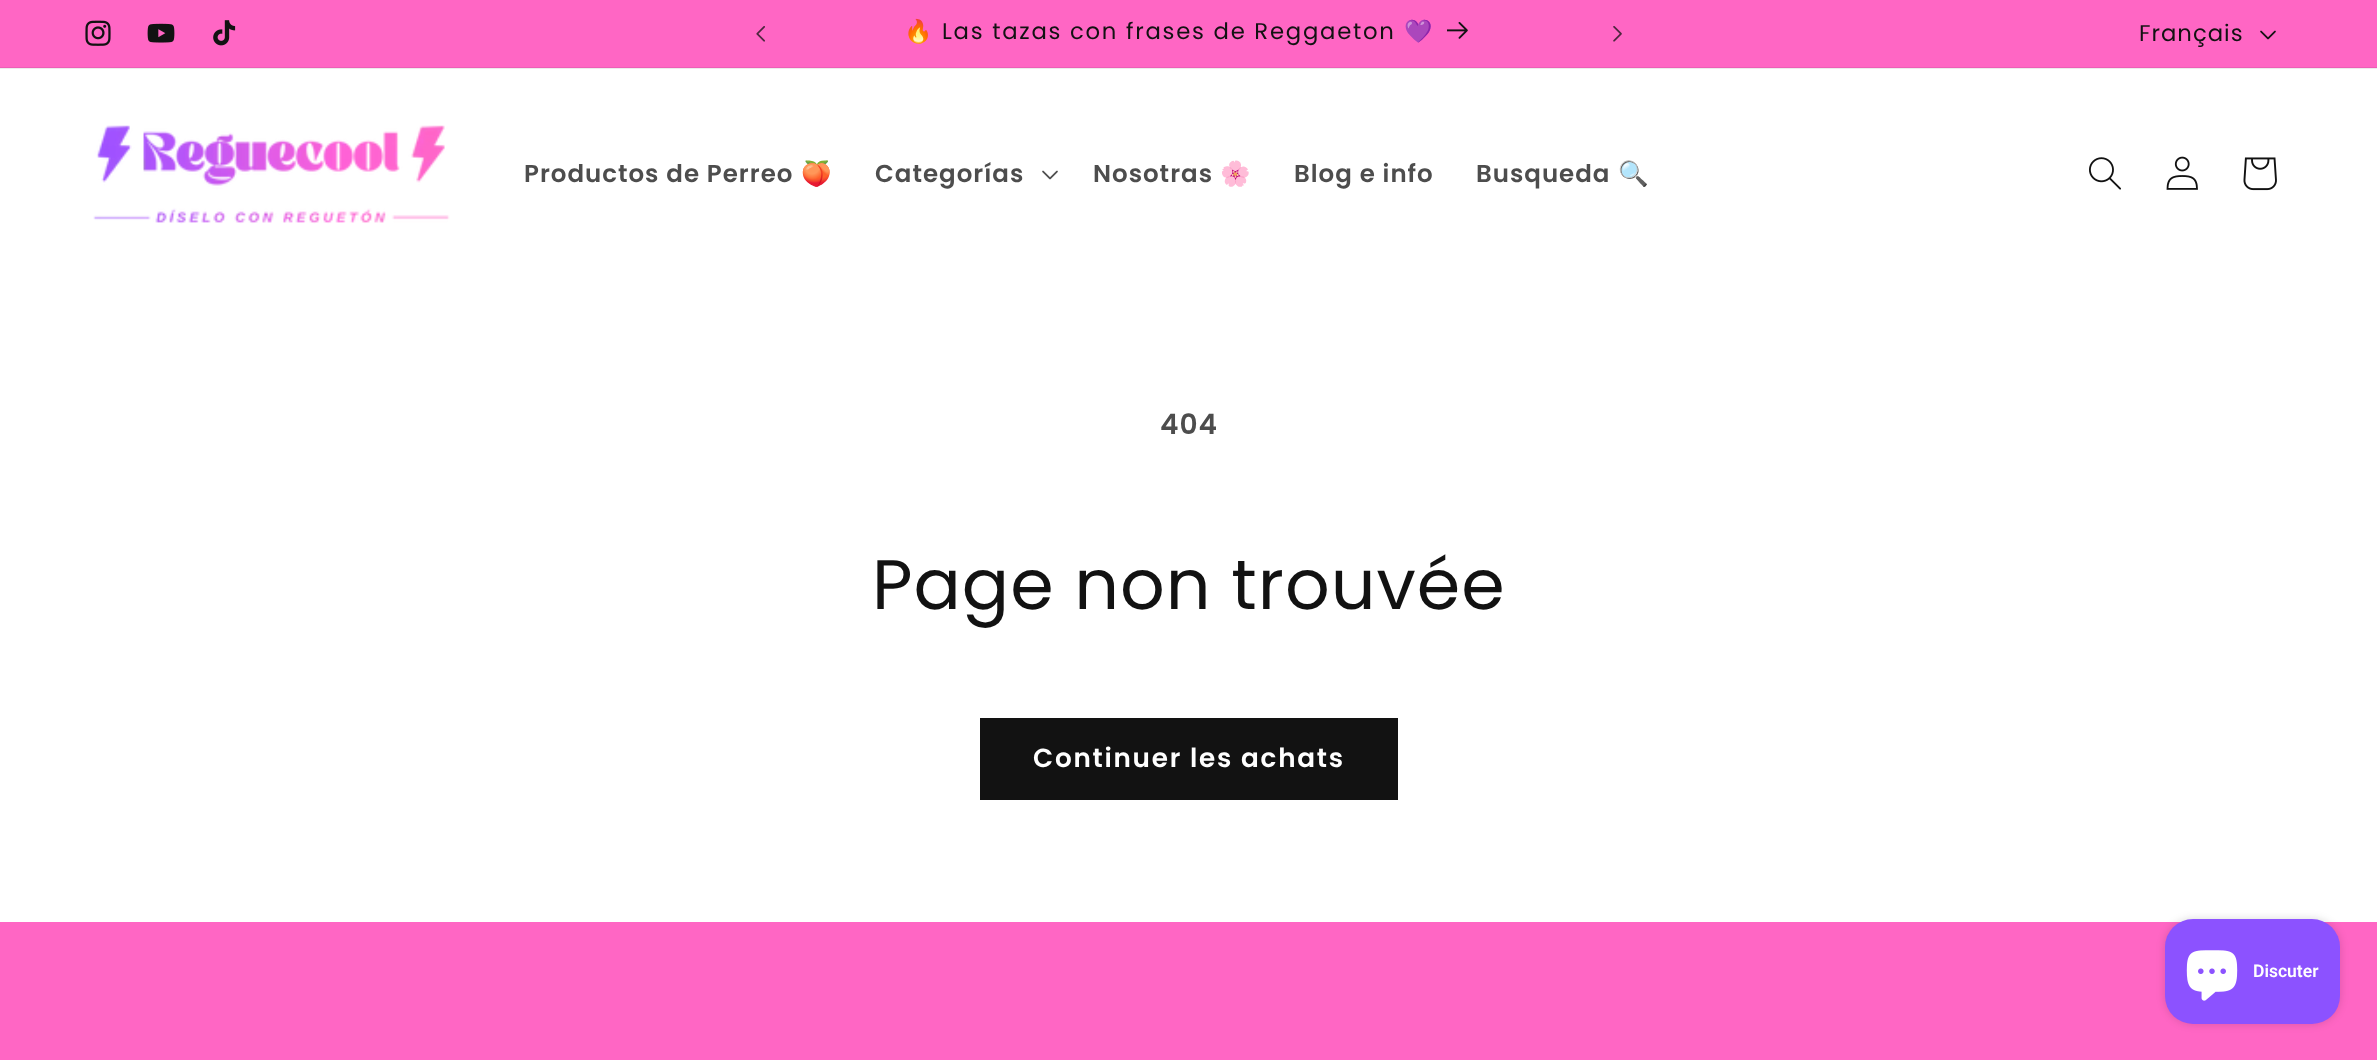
<svg xmlns="http://www.w3.org/2000/svg" width="2377" height="1060">
	<rect width="100%" height="100%" fill="#FFFFFF" />
	<rect x="0" y="68" width="2377" height="1" fill="#ECECEC" />
	<rect x="0" y="0" width="2377" height="67" fill="#FF66C4" />
	<rect x="0" y="67" width="2377" height="1" fill="#EC5FB6" />
	<image x="85" y="20" width="26" height="26" href="assets/img1.png" />
	<image x="147" y="23" width="28" height="20" href="assets/img2.png" />
	<image x="213" y="20" width="23" height="26" href="assets/img3.png" />
	<image x="756" y="26" width="9" height="16" href="assets/img4.png" />
	<text x="904" y="39" font-family="Noto Color Emoji" font-size="22.75" letter-spacing="1.75" fill="#121212">🔥</text>
	<text x="942" y="39" font-family="Poppins" font-size="22.75" letter-spacing="1.75" fill="#121212">Las tazas con frases de Reggaeton</text>
	<text x="1404" y="39" font-family="Noto Color Emoji" font-size="22.75" letter-spacing="1.75" fill="#121212">💜</text>
	<image x="1447" y="21" width="21" height="18" href="assets/img5.png" />
	<image x="1613" y="26" width="9" height="16" href="assets/img6.png" />
	<text x="2139" y="41" font-family="Poppins" font-size="22.75" letter-spacing="1" fill="#121212">Français</text>
	<image x="2260" y="30" width="16" height="10" href="assets/img7.png" />
	<image x="93" y="125" width="357" height="99" href="assets/img8.png" />
	<text x="524" y="182" font-family="Poppins" font-size="24.5" font-weight="600" letter-spacing="1" fill="#4D4D4D">Productos de Perreo</text>
	<text x="801" y="182" font-family="Noto Color Emoji" font-size="24.5" font-weight="700" letter-spacing="1" fill="#4D4D4D">🍑</text>
	<text x="875" y="182" font-family="Poppins" font-size="24.5" font-weight="600" letter-spacing="1" fill="#4D4D4D">Categorías</text>
	<image x="1042" y="170" width="16" height="10" href="assets/img9.png" />
	<text x="1093" y="182" font-family="Poppins" font-size="24.5" font-weight="600" letter-spacing="1" fill="#4D4D4D">Nosotras</text>
	<text x="1220" y="182" font-family="Noto Color Emoji" font-size="24.5" font-weight="700" letter-spacing="1" fill="#4D4D4D">🌸</text>
	<g font-family="Poppins" font-size="24.5" font-weight="600" letter-spacing="1" fill="#4D4D4D">
		<text x="1294" y="182">Blog e info</text>
		<text x="1476" y="182">Busqueda</text>
	</g>
	<text x="1618" y="182" font-family="Noto Color Emoji" font-size="24.5" font-weight="700" letter-spacing="1" fill="#4D4D4D">🔍</text>
	<image x="2089" y="157" width="32" height="33" href="assets/img10.png" />
	<image x="2166" y="156" width="32" height="34" href="assets/img11.png" />
	<image x="2243" y="157" width="34" height="34" href="assets/img12.png" />
	<text x="1160" y="434" font-family="Poppins" font-size="28" font-weight="600" letter-spacing="1" fill="#4D4D4D">404</text>
	<text x="872" y="609" font-family="Poppins" font-size="70" letter-spacing="1" fill="#121212">Page non trouvée</text>
	<rect x="980" y="718" width="418" height="82" fill="#121212" />
	<text x="1033" y="767" font-family="Poppins" font-size="26.25" font-weight="600" letter-spacing="1.75" fill="#FFFFFF">Continuer les achats</text>
	<rect x="0" y="922" width="2377" height="138" fill="#FF66C4" />
	<rect x="2165" y="919" width="175" height="105" rx="28" fill="#000000" fill-opacity="0.15" filter="blur(4.5px)" />
	<rect x="2165" y="919" width="175" height="105" rx="28" fill="#8C52FF" />
	<image x="2186" y="950" width="52" height="51" href="assets/img13.png" />
	<text x="2253" y="977" font-family="Roboto" font-size="17.5" font-weight="600" fill="#FFFFFF">Discuter</text>
</svg>
